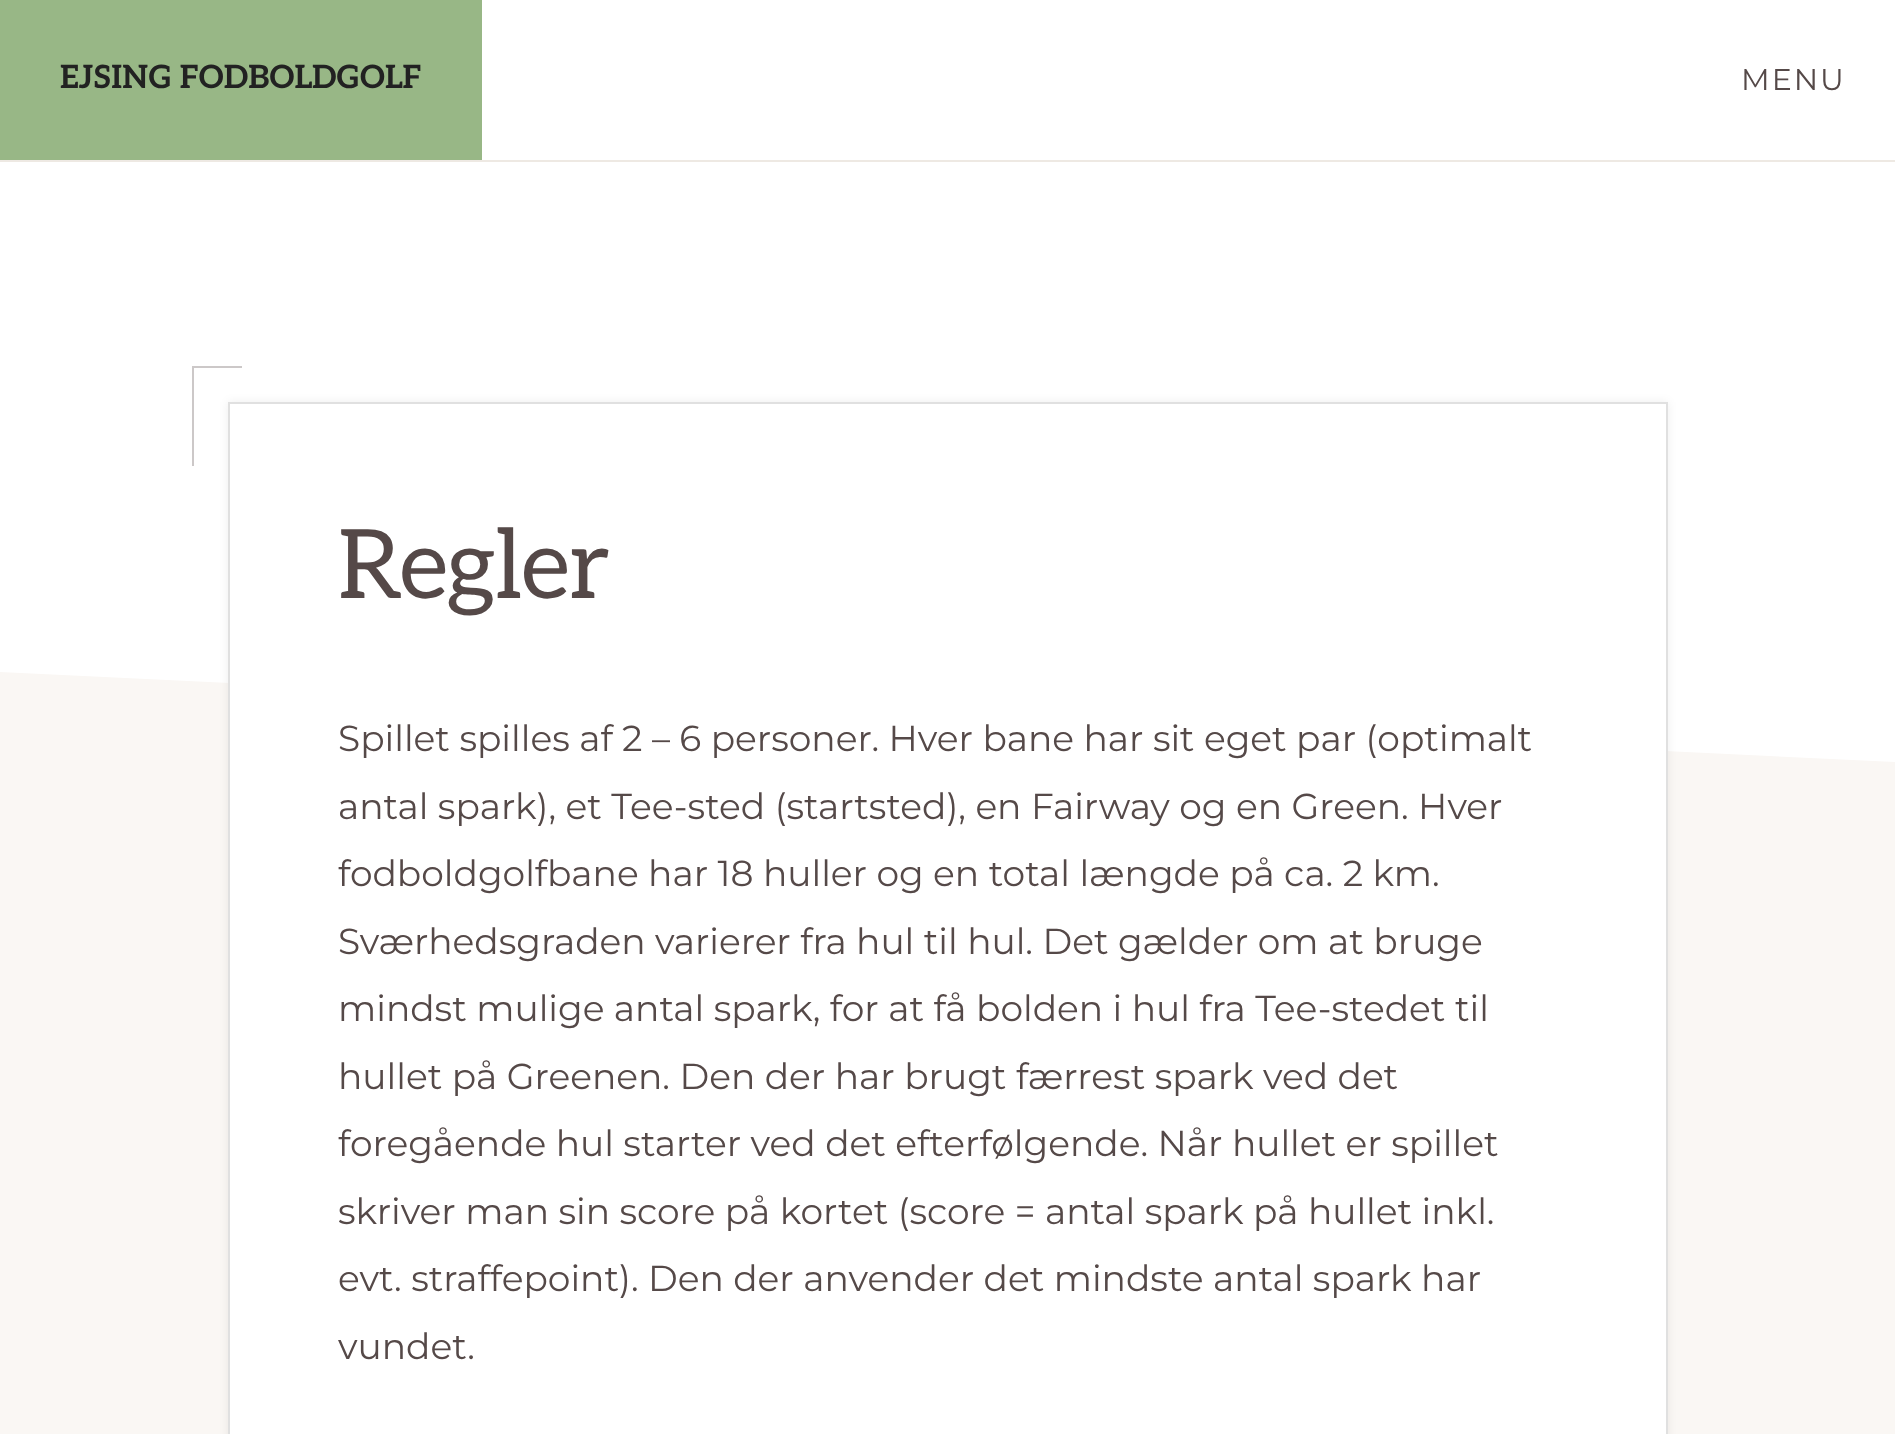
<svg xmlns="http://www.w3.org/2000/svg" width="1895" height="1434">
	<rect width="100%" height="100%" fill="#FAF7F4" />
	<rect x="482" y="0" width="1413" height="160" fill="#FFFFFF" />
	<rect x="0" y="160" width="1895" height="2" fill="#EEE9E3" />
	<rect x="0" y="0" width="482" height="160" fill="#98B786" />
	<text x="60" y="88" font-family="Aleo" font-size="32" font-weight="700" fill="#222222">EJSING FODBOLDGOLF</text>
	<text x="1741" y="90" font-family="Montserrat" font-size="30" letter-spacing="2" fill="#554948">MENU</text>
	<path d="M0 162V672L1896 762V162Z" fill="#FFFFFF" />
	<rect x="228" y="402" width="1440" height="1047" fill="#000000" fill-opacity="0.07" filter="blur(5px)" />
	<rect x="229" y="403" width="1438" height="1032" fill="#FFFFFF" stroke="#E0E0E0" stroke-width="2" />
	<rect x="192" y="366" width="50" height="2" fill="#CCC8C8" />
	<rect x="192" y="366" width="2" height="100" fill="#CCC8C8" />
	<text x="338" y="598" font-family="Aleo" font-size="96" letter-spacing="-1" fill="#554948">Regler</text>
	<g font-family="Montserrat" font-size="36" fill="#554948">
		<text x="338" y="751">Spillet spilles af 2 – 6 personer. Hver bane har sit eget par (optimalt</text>
		<text x="338" y="819">antal spark), et Tee-sted (startsted), en Fairway og en Green. Hver</text>
		<text x="338" y="886">fodboldgolfbane har 18 huller og en total længde på ca. 2 km.</text>
		<text x="338" y="954">Sværhedsgraden varierer fra hul til hul. Det gælder om at bruge</text>
		<text x="338" y="1021">mindst mulige antal spark, for at få bolden i hul fra Tee-stedet til</text>
		<text x="338" y="1089">hullet på Greenen. Den der har brugt færrest spark ved det</text>
		<text x="338" y="1156">foregående hul starter ved det efterfølgende. Når hullet er spillet</text>
		<text x="338" y="1224">skriver man sin score på kortet (score = antal spark på hullet inkl.</text>
		<text x="338" y="1291">evt. straffepoint). Den der anvender det mindste antal spark har</text>
		<text x="338" y="1359">vundet.</text>
	</g>
</svg>
